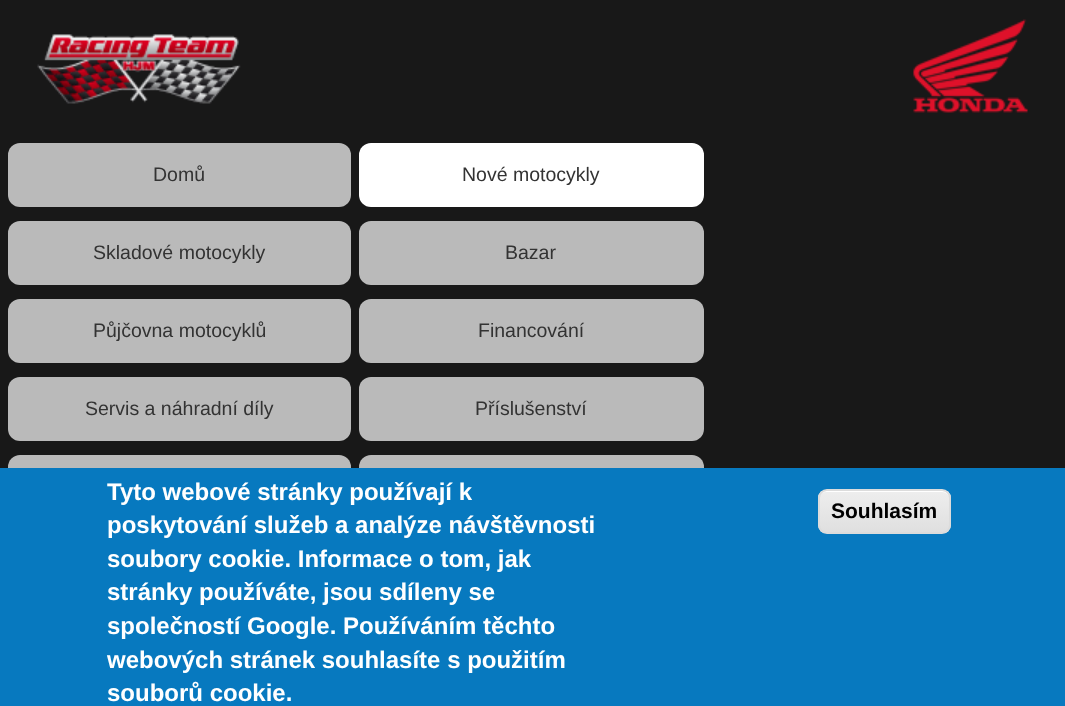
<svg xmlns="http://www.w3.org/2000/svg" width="1065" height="706">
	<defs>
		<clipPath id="clip1"><rect x="818" y="489" width="133" height="45" rx="9" /></clipPath>
		<linearGradient id="g1" gradientUnits="userSpaceOnUse" x1="884" y1="491" x2="884" y2="533"><stop offset="0.05" stop-color="#EDEDED" /><stop offset="1" stop-color="#DFDFDF" /></linearGradient>
	</defs>
	<rect width="100%" height="100%" fill="#181818" />
	<image x="37" y="34" width="204" height="70" href="assets/img1.png" />
	<image x="913" y="19" width="115" height="94" href="assets/img2.png" />
	<rect x="8" y="143" width="343" height="64" rx="12" fill="#BABABA" />
	<text x="153" y="181" font-family="Liberation Sans" font-size="19.5" fill="#333333">Domů</text>
	<rect x="359" y="143" width="345" height="64" rx="12" fill="#FFFFFF" />
	<text x="462" y="181" font-family="Liberation Sans" font-size="19.5" fill="#333333">Nové motocykly</text>
	<rect x="8" y="221" width="343" height="64" rx="12" fill="#BABABA" />
	<text x="93" y="259" font-family="Liberation Sans" font-size="19.5" fill="#333333">Skladové motocykly</text>
	<rect x="359" y="221" width="345" height="64" rx="12" fill="#BABABA" />
	<text x="505" y="259" font-family="Liberation Sans" font-size="19.5" fill="#333333">Bazar</text>
	<rect x="8" y="299" width="343" height="64" rx="12" fill="#BABABA" />
	<text x="93" y="337" font-family="Liberation Sans" font-size="19.5" fill="#333333">Půjčovna motocyklů</text>
	<rect x="359" y="299" width="345" height="64" rx="12" fill="#BABABA" />
	<text x="478" y="337" font-family="Liberation Sans" font-size="19.5" fill="#333333">Financování</text>
	<rect x="8" y="377" width="343" height="64" rx="12" fill="#BABABA" />
	<text x="85" y="415" font-family="Liberation Sans" font-size="19.5" fill="#333333">Servis a náhradní díly</text>
	<rect x="359" y="377" width="345" height="64" rx="12" fill="#BABABA" />
	<text x="475" y="415" font-family="Liberation Sans" font-size="19.5" fill="#333333">Příslušenství</text>
	<rect x="8" y="455" width="343" height="64" rx="12" fill="#BABABA" />
	<rect x="359" y="455" width="345" height="64" rx="12" fill="#BABABA" />
	<rect x="0" y="468" width="1065" height="238" fill="#0779BF" />
	<g font-family="Liberation Sans" font-size="24" font-weight="700" fill="#FFFFFF">
		<text x="107" y="500">Tyto webové stránky používají k</text>
		<text x="107" y="533">poskytování služeb a analýze návštěvnosti</text>
		<text x="107" y="567">soubory cookie. Informace o tom, jak</text>
		<text x="107" y="600">stránky používáte, jsou sdíleny se</text>
		<text x="107" y="634">společností Google. Používáním těchto</text>
		<text x="107" y="668">webových stránek souhlasíte s použitím</text>
		<text x="107" y="701">souborů cookie.</text>
	</g>
	<g clip-path="url(#clip1)">
		<rect x="818" y="491" width="133" height="42" fill="url(#g1)" />
	</g>
	<path d="M826 492H942C946 492 950 495 950 500C950 486 931 491 923 491H846C838 491 819 486 819 500C819 495 822 492 826 492Z" fill="#FFFFFF" />
	<rect x="819" y="490" width="131" height="43" rx="8" fill="none" stroke="#DCDCDC" stroke-width="2" />
	<text x="831" y="518" font-family="Liberation Sans" font-size="21" font-weight="700" fill="#000000">Souhlasím</text>
</svg>
